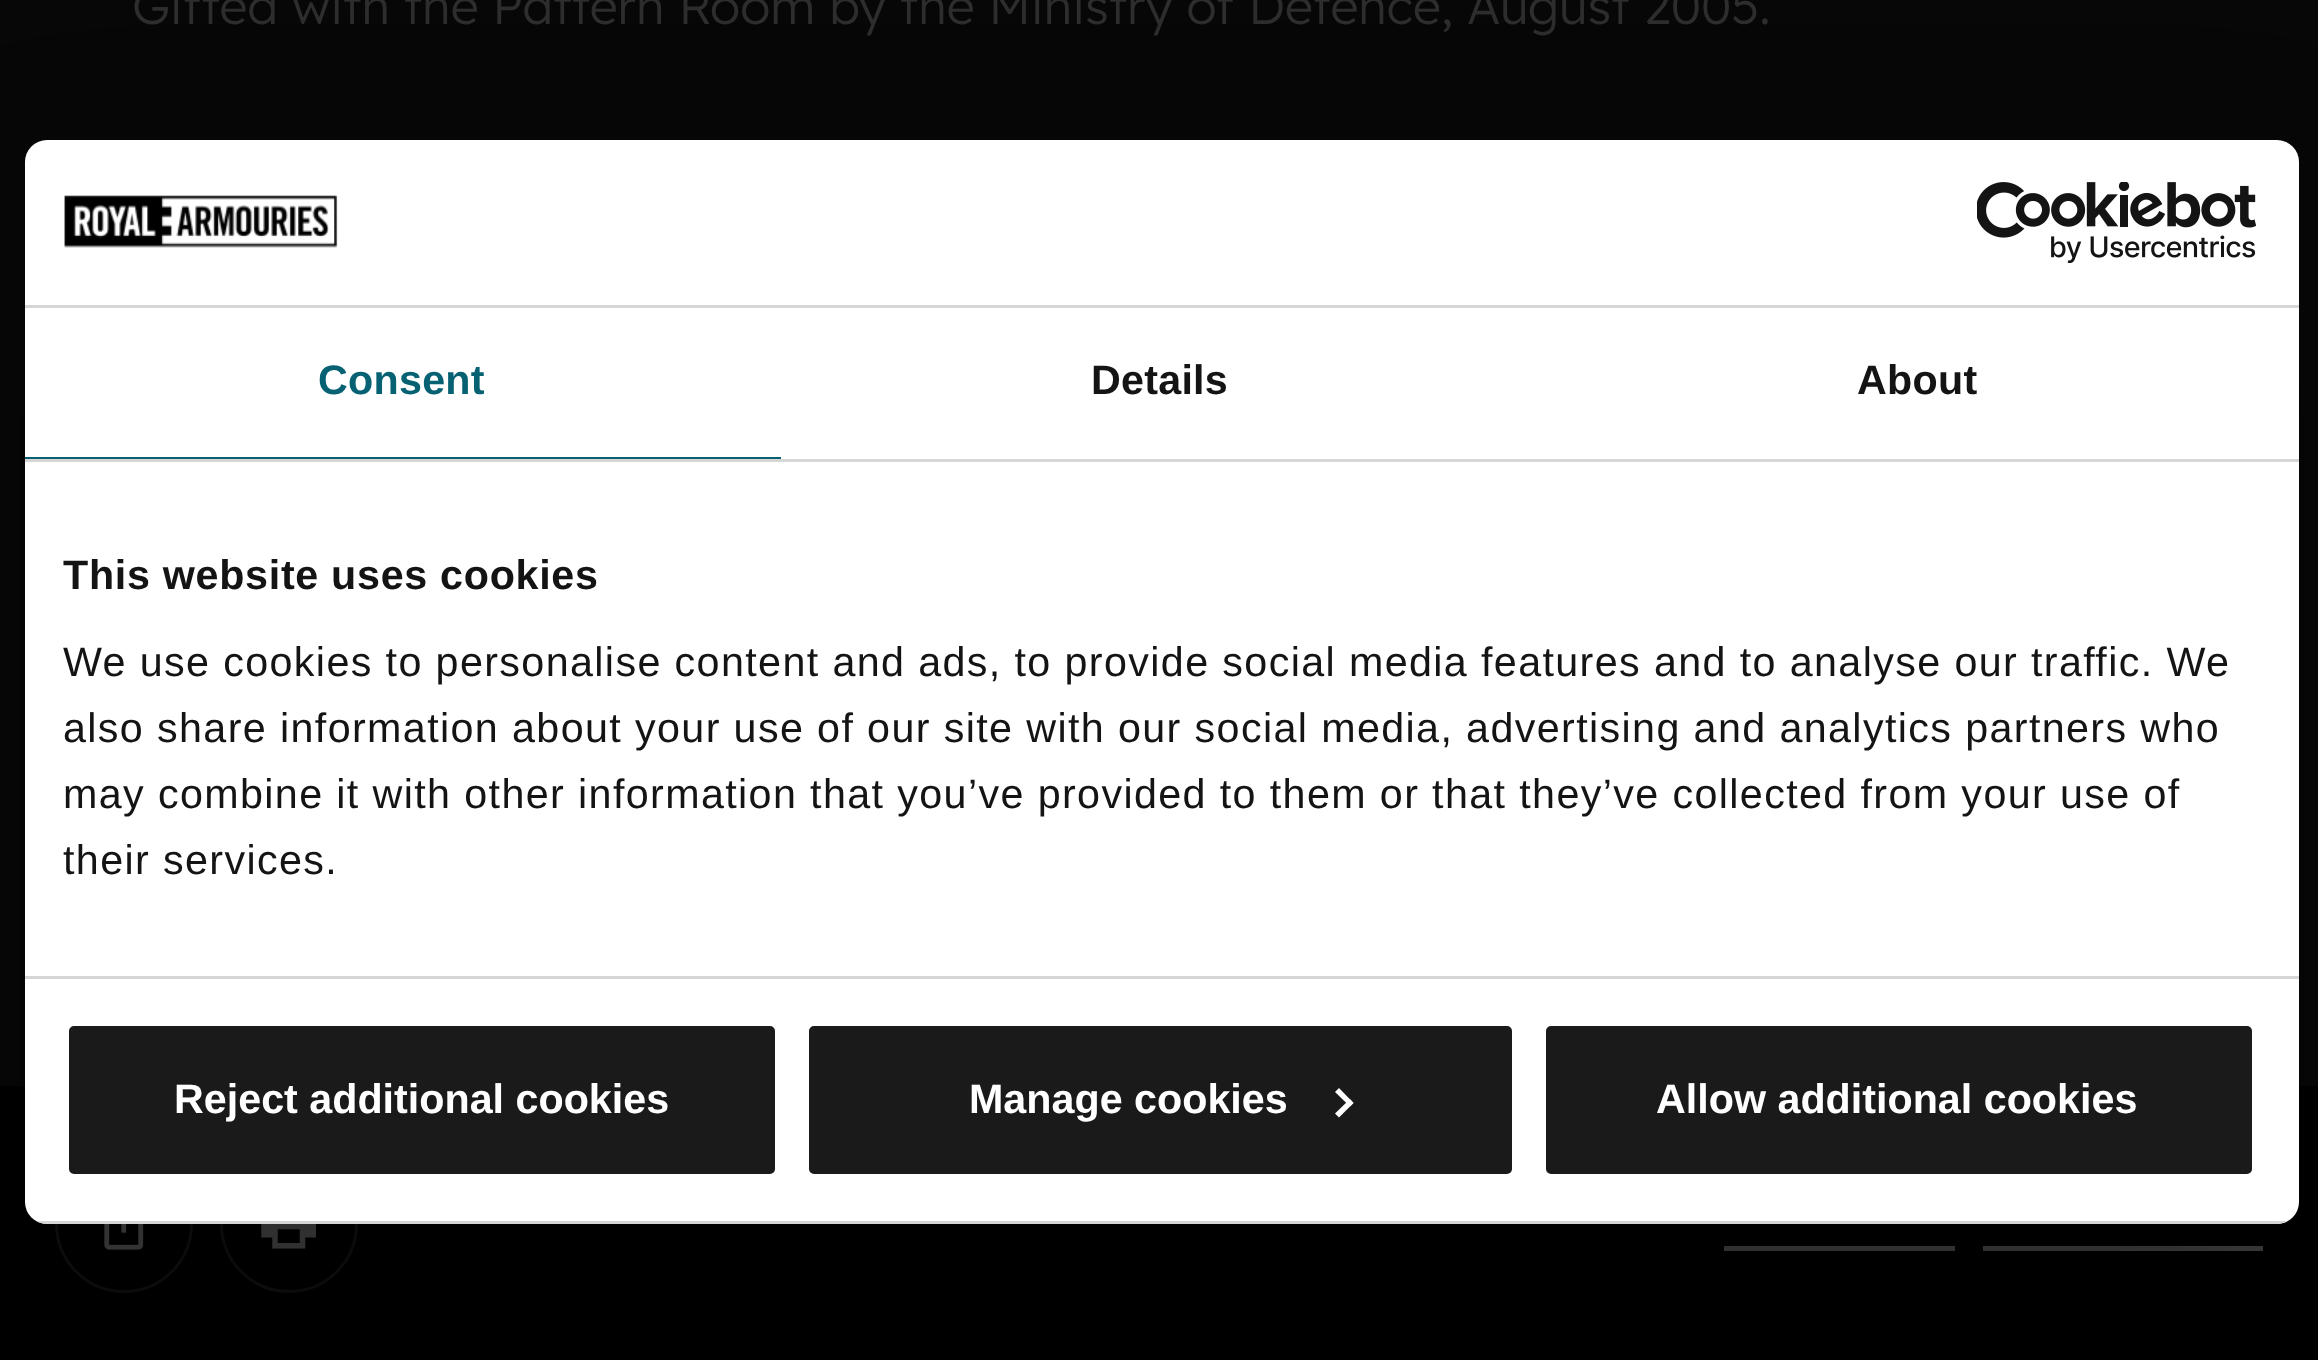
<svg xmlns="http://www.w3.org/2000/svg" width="2318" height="1360">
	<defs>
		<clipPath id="clip1"><path d="M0 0H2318V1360H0ZM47 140H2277C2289 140 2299 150 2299 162V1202C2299 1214 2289 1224 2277 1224H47C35 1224 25 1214 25 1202V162C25 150 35 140 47 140Z" clip-rule="evenodd" /></clipPath>
		<clipPath id="clip2"><rect x="25" y="140" width="2274" height="1084" rx="22" /></clipPath>
	</defs>
	<rect width="100%" height="100%" fill="#070707" />
	<text x="132" y="24" font-family="Lexend" font-size="49.5" font-weight="300" fill="#2D2D2D">Gifted with the Pattern Room by the Ministry of Defence, August 2005.</text>
	<rect x="0" y="1086" width="2318" height="274" fill="#000000" />
	<circle cx="124" cy="1224" r="67.5" fill="none" stroke="#0F0F0F" stroke-width="3" />
	<image x="104" y="1224" width="40" height="26" href="assets/img1.png" />
	<circle cx="289" cy="1224" r="67.5" fill="none" stroke="#0F0F0F" stroke-width="3" />
	<image x="261" y="1224" width="55" height="25" href="assets/img2.png" />
	<rect x="1724" y="1246" width="231" height="5" fill="#404040" />
	<rect x="1983" y="1246" width="280" height="5" fill="#404040" />
	<g clip-path="url(#clip1)">
		<rect x="25" y="228" width="2274" height="1084" rx="22" fill="#000000" fill-opacity="0.3" filter="blur(93.5px)" />
	</g>
	<rect x="25" y="140" width="2274" height="1084" rx="22" fill="#FFFFFF" />
	<rect x="25" y="305" width="2274" height="3" fill="#D6D6D6" />
	<image x="64" y="195" width="274" height="53" href="assets/img3.png" />
	<image x="1977" y="182" width="280" height="82" href="assets/img4.png" />
	<rect x="25" y="459" width="2274" height="3" fill="#D6D6D6" />
	<rect x="25" y="457" width="756" height="2" fill="#066273" />
	<text x="318" y="394" font-family="Liberation Sans" font-size="41.25" font-weight="700" letter-spacing="0.25" fill="#066273">Consent</text>
	<g font-family="Liberation Sans" font-size="41.25" font-weight="700" letter-spacing="0.25" fill="#141414">
		<text x="1091" y="394">Details</text>
		<text x="1857" y="394">About</text>
	</g>
	<rect x="25" y="976" width="2274" height="3" fill="#D6D6D6" />
	<text x="63" y="589" font-family="Liberation Sans" font-size="41.25" font-weight="700" letter-spacing="0.7" fill="#141414">This website uses cookies</text>
	<g font-family="Liberation Sans" font-size="41.25" letter-spacing="1.38" fill="#141414">
		<text x="63" y="676">We use cookies to personalise content and ads, to provide social media features and to analyse our traffic. We</text>
		<text x="63" y="742">also share information about your use of our site with our social media, advertising and analytics partners who</text>
		<text x="63" y="808">may combine it with other information that you’ve provided to them or that they’ve collected from your use of</text>
		<text x="63" y="874">their services.</text>
	</g>
	<g clip-path="url(#clip2)">
		<rect x="36" y="1221" width="2252" height="3" fill="#D6D6D6" />
	</g>
	<rect x="66" y="1023" width="712" height="154" rx="8" fill="#1A1A1A" stroke="#FFFFFF" stroke-width="6" />
	<text x="174" y="1113" font-family="Liberation Sans" font-size="41.25" font-weight="700" fill="#FFFFFF">Reject additional cookies</text>
	<rect x="806" y="1023" width="709" height="154" rx="8" fill="#1A1A1A" stroke="#FFFFFF" stroke-width="6" />
	<text x="969" y="1113" font-family="Liberation Sans" font-size="41.25" font-weight="700" fill="#FFFFFF">Manage cookies</text>
	<path d="M1339 1088L1353.5 1103L1350 1106.5L1335 1092Z" fill="#FFFFFF" />
	<path d="M1350 1099L1353.5 1103L1339 1117.5L1335 1113.5Z" fill="#FFFFFF" />
	<rect x="1543" y="1023" width="712" height="154" rx="8" fill="#1A1A1A" stroke="#FFFFFF" stroke-width="6" />
	<text x="1656" y="1113" font-family="Liberation Sans" font-size="41.25" font-weight="700" fill="#FFFFFF">Allow additional cookies</text>
</svg>
